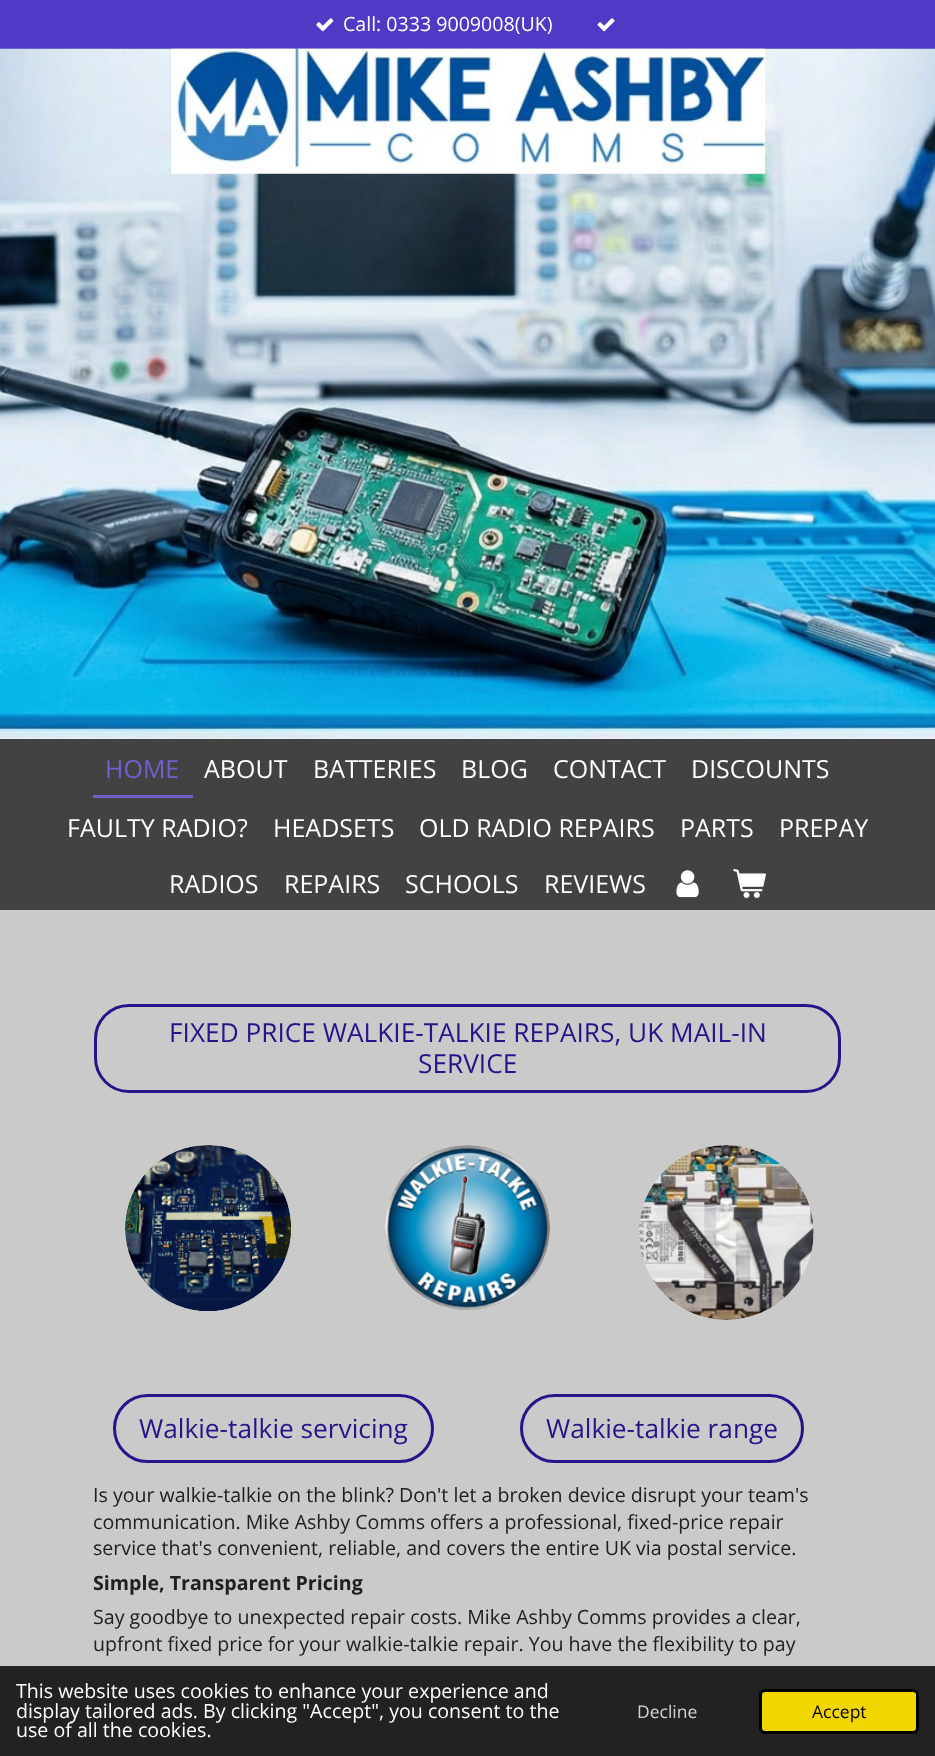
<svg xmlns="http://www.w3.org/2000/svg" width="935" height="1756">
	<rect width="100%" height="100%" fill="#FFFFFF" />
	<rect x="0" y="0" width="935" height="49" fill="#4E3AC4" />
	<image x="316" y="18" width="18" height="14" href="assets/img1.png" />
	<text x="343" y="31" font-family="Open Sans" font-size="19.6" fill="#FFFFFF">Call: 0333 9009008(UK)</text>
	<image x="597" y="18" width="18" height="14" href="assets/img2.png" />
	<image x="0" y="48" width="935" height="691" href="assets/img3.png" />
	<image x="171" y="48" width="594" height="126" href="assets/img4.png" />
	<rect x="0" y="739" width="935" height="171" fill="#424242" />
	<rect x="93" y="795" width="100" height="3" fill="#7161D0" />
	<text x="105" y="778" font-family="Open Sans" font-size="25" fill="#7161D0">HOME</text>
	<g font-family="Open Sans" font-size="25" fill="#FFFFFF">
		<text x="204" y="778">ABOUT</text>
		<text x="313" y="778">BATTERIES</text>
		<text x="461" y="778">BLOG</text>
		<text x="553" y="778">CONTACT</text>
		<text x="691" y="778">DISCOUNTS</text>
		<text x="67" y="837">FAULTY RADIO?</text>
		<text x="273" y="837">HEADSETS</text>
		<text x="419" y="837">OLD RADIO REPAIRS</text>
		<text x="680" y="837">PARTS</text>
		<text x="779" y="837">PREPAY</text>
		<text x="169" y="893">RADIOS</text>
		<text x="284" y="893">REPAIRS</text>
		<text x="405" y="893">SCHOOLS</text>
		<text x="544" y="893">REVIEWS</text>
	</g>
	<image x="676" y="870" width="23" height="28" href="assets/img5.png" />
	<image x="733" y="869" width="33" height="29" href="assets/img6.png" />
	<rect x="0" y="910" width="935" height="756" fill="#CACACA" />
	<rect x="95.5" y="1005.5" width="744" height="86" rx="33.5" fill="none" stroke="#251589" stroke-width="3" />
	<g font-family="Open Sans" font-size="26.25" fill="#251589">
		<text x="169" y="1042">FIXED PRICE WALKIE-TALKIE REPAIRS, UK MAIL-IN</text>
		<text x="418" y="1073">SERVICE</text>
	</g>
	<image x="125" y="1145" width="166" height="166" href="assets/img7.png" />
	<image x="385" y="1145" width="165" height="165" href="assets/img8.png" />
	<image x="639" y="1145" width="175" height="175" href="assets/img9.png" />
	<rect x="114.5" y="1395.5" width="318" height="66" rx="33" fill="none" stroke="#251589" stroke-width="3" />
	<text x="139" y="1438" font-family="Open Sans" font-size="26.25" fill="#251589">Walkie-talkie servicing</text>
	<rect x="521.5" y="1395.5" width="281" height="66" rx="33" fill="none" stroke="#251589" stroke-width="3" />
	<text x="546" y="1438" font-family="Open Sans" font-size="26.25" fill="#251589">Walkie-talkie range</text>
	<g font-family="Open Sans" font-size="19.6" fill="#202020">
		<text x="93" y="1502">Is your walkie-talkie on the blink? Don't let a broken device disrupt your team's</text>
		<text x="93" y="1529">communication. Mike Ashby Comms offers a professional, fixed-price repair</text>
		<text x="93" y="1555">service that's convenient, reliable, and covers the entire UK via postal service.</text>
	</g>
	<text x="93" y="1590" font-family="Open Sans" font-size="19.6" font-weight="700" fill="#202020">Simple, Transparent Pricing</text>
	<g font-family="Open Sans" font-size="19.6" fill="#202020">
		<text x="93" y="1624">Say goodbye to unexpected repair costs. Mike Ashby Comms provides a clear,</text>
		<text x="93" y="1651">upfront fixed price for your walkie-talkie repair. You have the flexibility to pay</text>
	</g>
	<rect x="0" y="1666" width="935" height="90" fill="#222222" />
	<g font-family="Open Sans" font-size="19.6" fill="#FFFFFF">
		<text x="16" y="1698">This website uses cookies to enhance your experience and</text>
		<text x="16" y="1718">display tailored ads. By clicking "Accept", you consent to the</text>
		<text x="16" y="1737">use of all the cookies.</text>
	</g>
	<text x="637" y="1718" font-family="Open Sans" font-size="17.5" fill="#D3D3D3">Decline</text>
	<rect x="760.5" y="1690.5" width="157" height="42" rx="4.5" fill="#F1D600" stroke="#000000" stroke-width="3" />
	<text x="812" y="1718" font-family="Open Sans" font-size="17.5" fill="#000000">Accept</text>
</svg>
